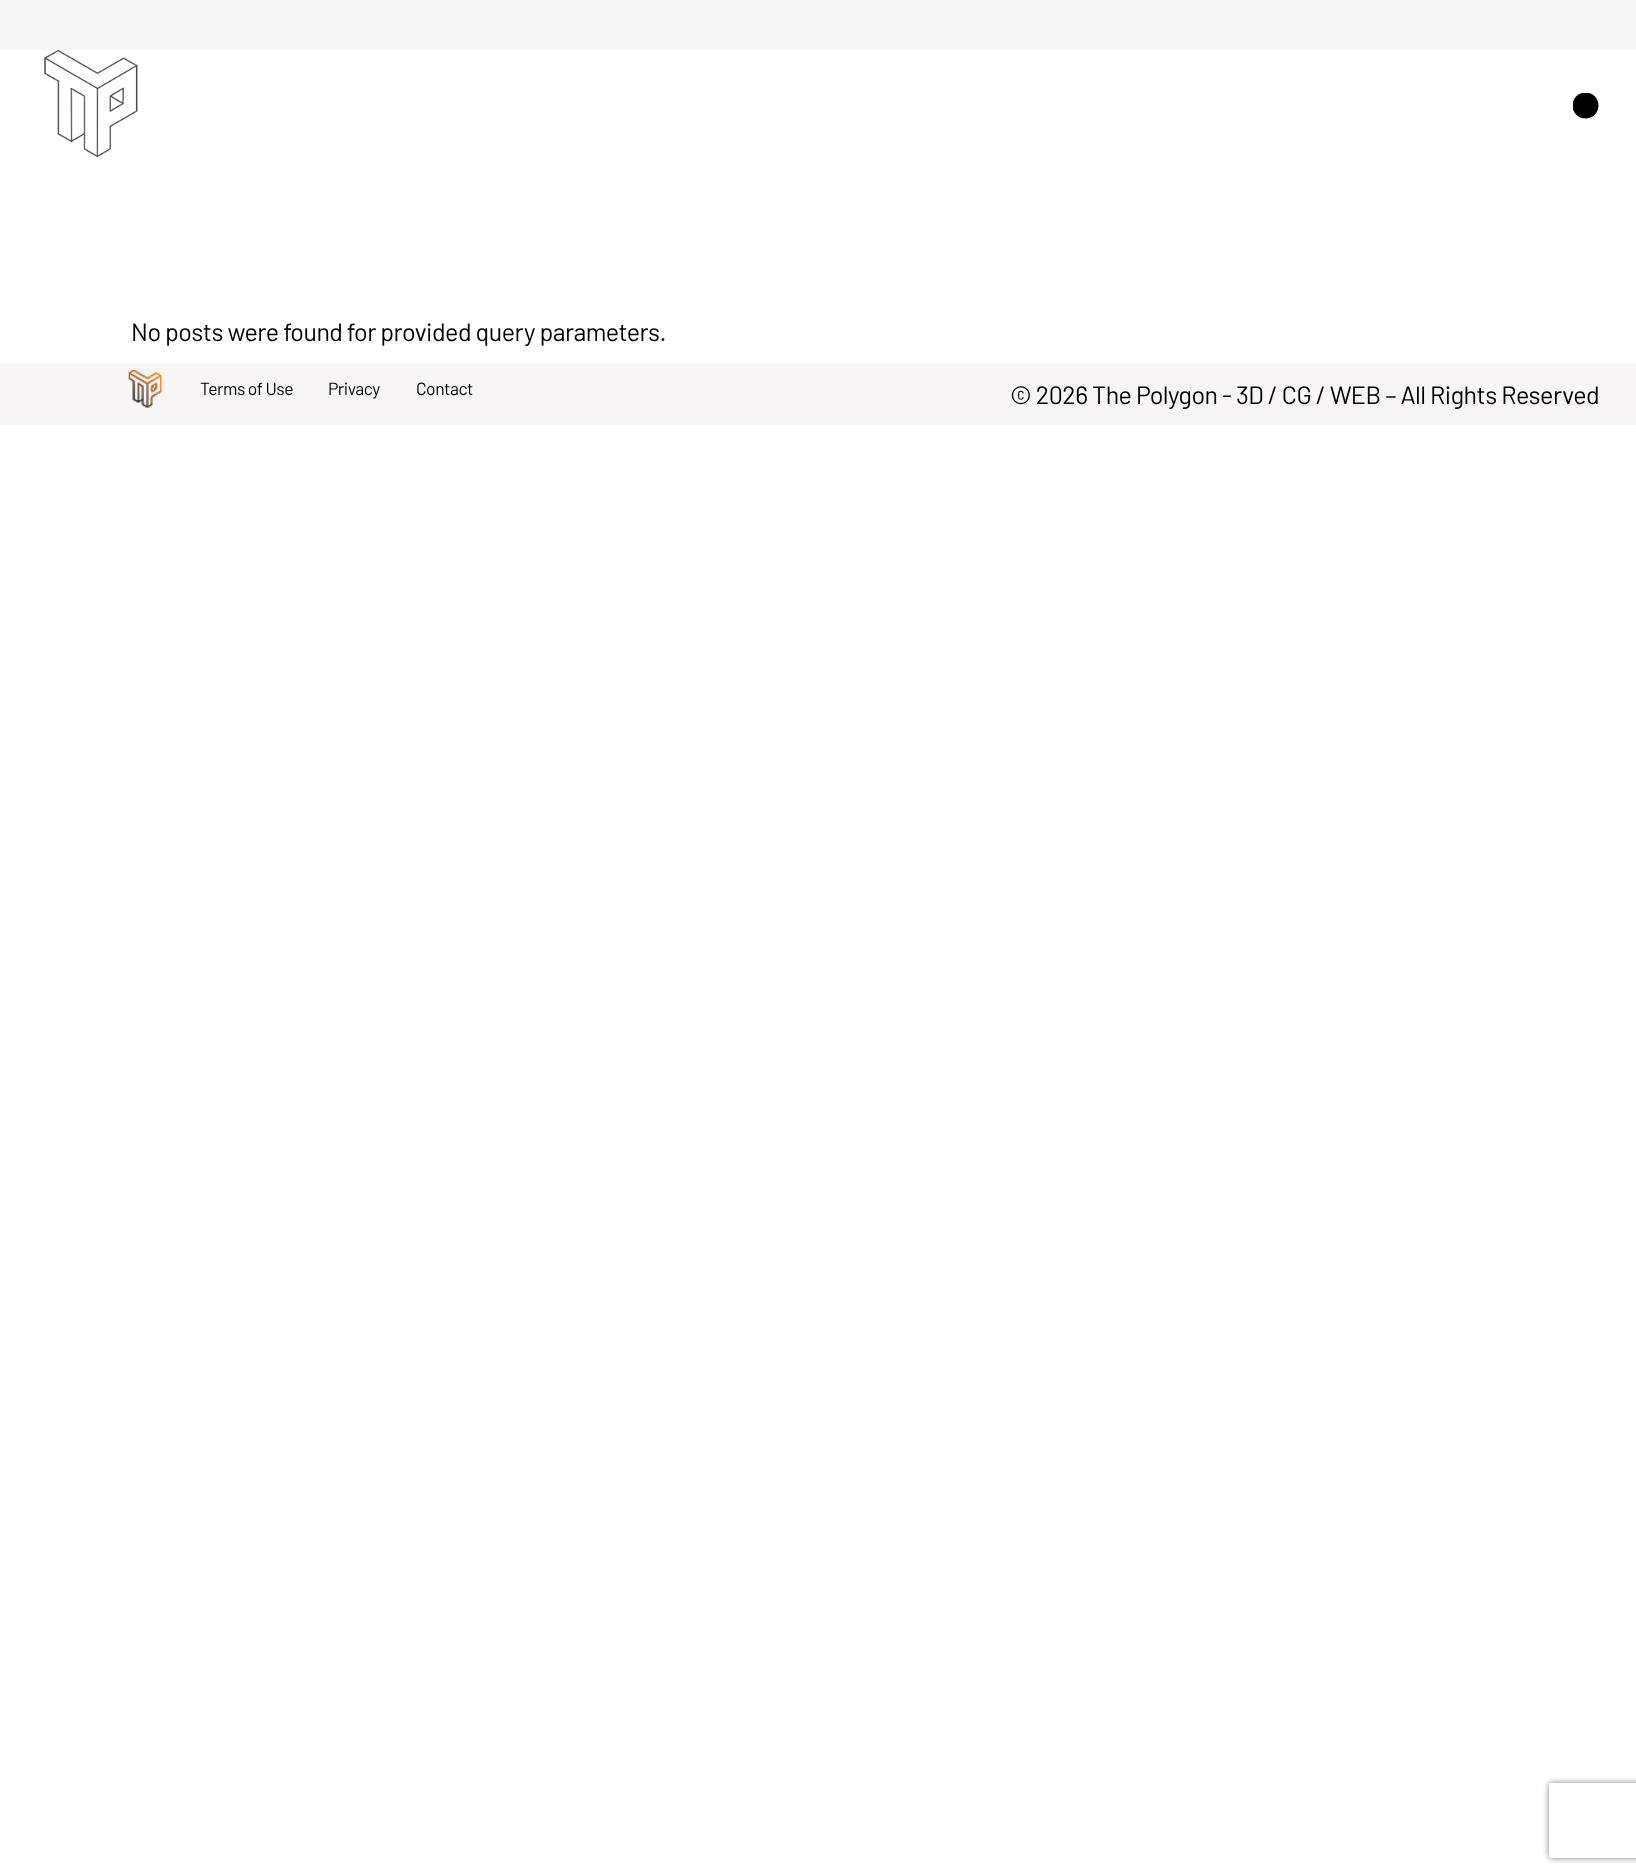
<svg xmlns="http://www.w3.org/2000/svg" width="1636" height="1875">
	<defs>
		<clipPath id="clip1"><rect x="1573" y="93" width="26" height="26" /></clipPath>
		<clipPath id="clip2"><path d="M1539 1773H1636V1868H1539ZM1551.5 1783H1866.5C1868 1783 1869 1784 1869 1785.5V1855.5C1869 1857 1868 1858 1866.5 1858H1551.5C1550 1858 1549 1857 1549 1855.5V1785.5C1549 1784 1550 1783 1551.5 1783Z" clip-rule="evenodd" /></clipPath>
	</defs>
	<rect width="100%" height="100%" fill="#FFFFFF" />
	<rect x="0" y="0" width="1636" height="50" fill="#F6F6F6" />
	<image x="44" y="50" width="94" height="108" href="assets/img1.png" />
	<g clip-path="url(#clip1)">
		<circle cx="1585.5" cy="105.5" r="13" fill="#000000" />
	</g>
	<text x="131" y="341" font-family="Barlow" font-size="25" letter-spacing="-0.5" fill="#000000">No posts were found for provided query parameters.</text>
	<rect x="0" y="363" width="1636" height="62" fill="#F7F5F5" />
	<image x="128" y="370" width="34" height="38" href="assets/img2.png" />
	<g font-family="Barlow" font-size="17.5" letter-spacing="-0.5" fill="#000000">
		<text x="200" y="395">Terms of Use</text>
		<text x="328" y="395">Privacy</text>
		<text x="416" y="395">Contact</text>
	</g>
	<text x="1010" y="404" font-family="Barlow" font-size="25" letter-spacing="-0.5" fill="#000000">© 2026 The Polygon - 3D / CG / WEB – All Rights Reserved</text>
	<g clip-path="url(#clip2)">
		<rect x="1549" y="1783" width="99" height="75" rx="2.5" fill="#808080" filter="blur(3px)" />
	</g>
</svg>
